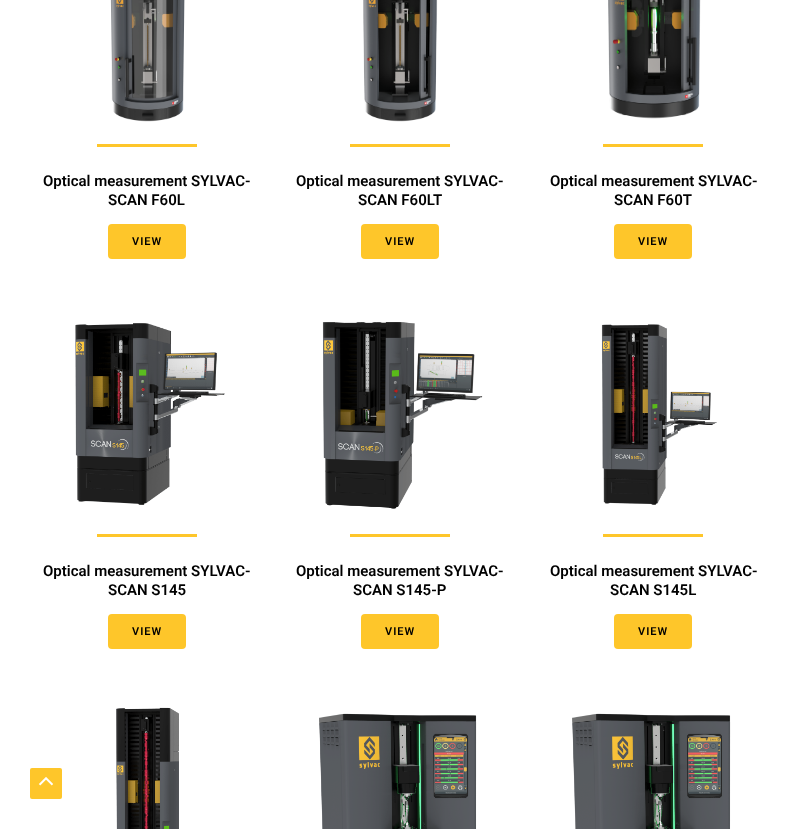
<svg xmlns="http://www.w3.org/2000/svg" width="800" height="829">
	<rect width="100%" height="100%" fill="#FFFFFF" />
	<image x="110" y="0" width="75" height="122" href="assets/img1.png" />
	<rect x="97" y="144" width="100" height="3" fill="#FEC62A" />
	<g font-family="Roboto" font-size="15" font-weight="600" fill="#000000">
		<text x="43" y="186">Optical measurement SYLVAC-</text>
		<text x="108" y="205">SCAN F60L</text>
	</g>
	<rect x="108" y="224" width="78" height="35" rx="4" fill="#FEC62A" />
	<text x="132" y="245" font-family="Roboto" font-size="11" font-weight="600" letter-spacing="1" fill="#000000">VIEW</text>
	<image x="363" y="0" width="75" height="122" href="assets/img2.png" />
	<rect x="350" y="144" width="100" height="3" fill="#FEC62A" />
	<g font-family="Roboto" font-size="15" font-weight="600" fill="#000000">
		<text x="296" y="186">Optical measurement SYLVAC-</text>
		<text x="358" y="205">SCAN F60LT</text>
	</g>
	<rect x="361" y="224" width="78" height="35" rx="4" fill="#FEC62A" />
	<text x="385" y="245" font-family="Roboto" font-size="11" font-weight="600" letter-spacing="1" fill="#000000">VIEW</text>
	<image x="608" y="0" width="93" height="119" href="assets/img3.png" />
	<rect x="603" y="144" width="100" height="3" fill="#FEC62A" />
	<g font-family="Roboto" font-size="15" font-weight="600" fill="#000000">
		<text x="550" y="186">Optical measurement SYLVAC-</text>
		<text x="614" y="205">SCAN F60T</text>
	</g>
	<rect x="614" y="224" width="78" height="35" rx="4" fill="#FEC62A" />
	<text x="638" y="245" font-family="Roboto" font-size="11" font-weight="600" letter-spacing="1" fill="#000000">VIEW</text>
	<image x="75" y="323" width="150" height="182" href="assets/img4.png" />
	<rect x="97" y="534" width="100" height="3" fill="#FEC62A" />
	<g font-family="Roboto" font-size="15" font-weight="600" fill="#000000">
		<text x="43" y="576">Optical measurement SYLVAC-</text>
		<text x="108" y="595">SCAN S145</text>
	</g>
	<rect x="108" y="614" width="78" height="35" rx="4" fill="#FEC62A" />
	<text x="132" y="635" font-family="Roboto" font-size="11" font-weight="600" letter-spacing="1" fill="#000000">VIEW</text>
	<image x="322" y="322" width="161" height="187" href="assets/img5.png" />
	<rect x="350" y="534" width="100" height="3" fill="#FEC62A" />
	<g font-family="Roboto" font-size="15" font-weight="600" fill="#000000">
		<text x="296" y="576">Optical measurement SYLVAC-</text>
		<text x="353" y="595">SCAN S145-P</text>
	</g>
	<rect x="361" y="614" width="78" height="35" rx="4" fill="#FEC62A" />
	<text x="385" y="635" font-family="Roboto" font-size="11" font-weight="600" letter-spacing="1" fill="#000000">VIEW</text>
	<image x="601" y="324" width="116" height="181" href="assets/img6.png" />
	<rect x="603" y="534" width="100" height="3" fill="#FEC62A" />
	<g font-family="Roboto" font-size="15" font-weight="600" fill="#000000">
		<text x="550" y="576">Optical measurement SYLVAC-</text>
		<text x="610" y="595">SCAN S145L</text>
	</g>
	<rect x="614" y="614" width="78" height="35" rx="4" fill="#FEC62A" />
	<text x="638" y="635" font-family="Roboto" font-size="11" font-weight="600" letter-spacing="1" fill="#000000">VIEW</text>
	<image x="116" y="707" width="63" height="122" href="assets/img7.png" />
	<image x="319" y="713" width="158" height="116" href="assets/img8.png" />
	<image x="572" y="713" width="159" height="116" href="assets/img9.png" />
	<rect x="30" y="768" width="32" height="31" rx="2" fill="#FEC62A" />
	<image x="38" y="777" width="15" height="9" href="assets/img10.png" />
</svg>
